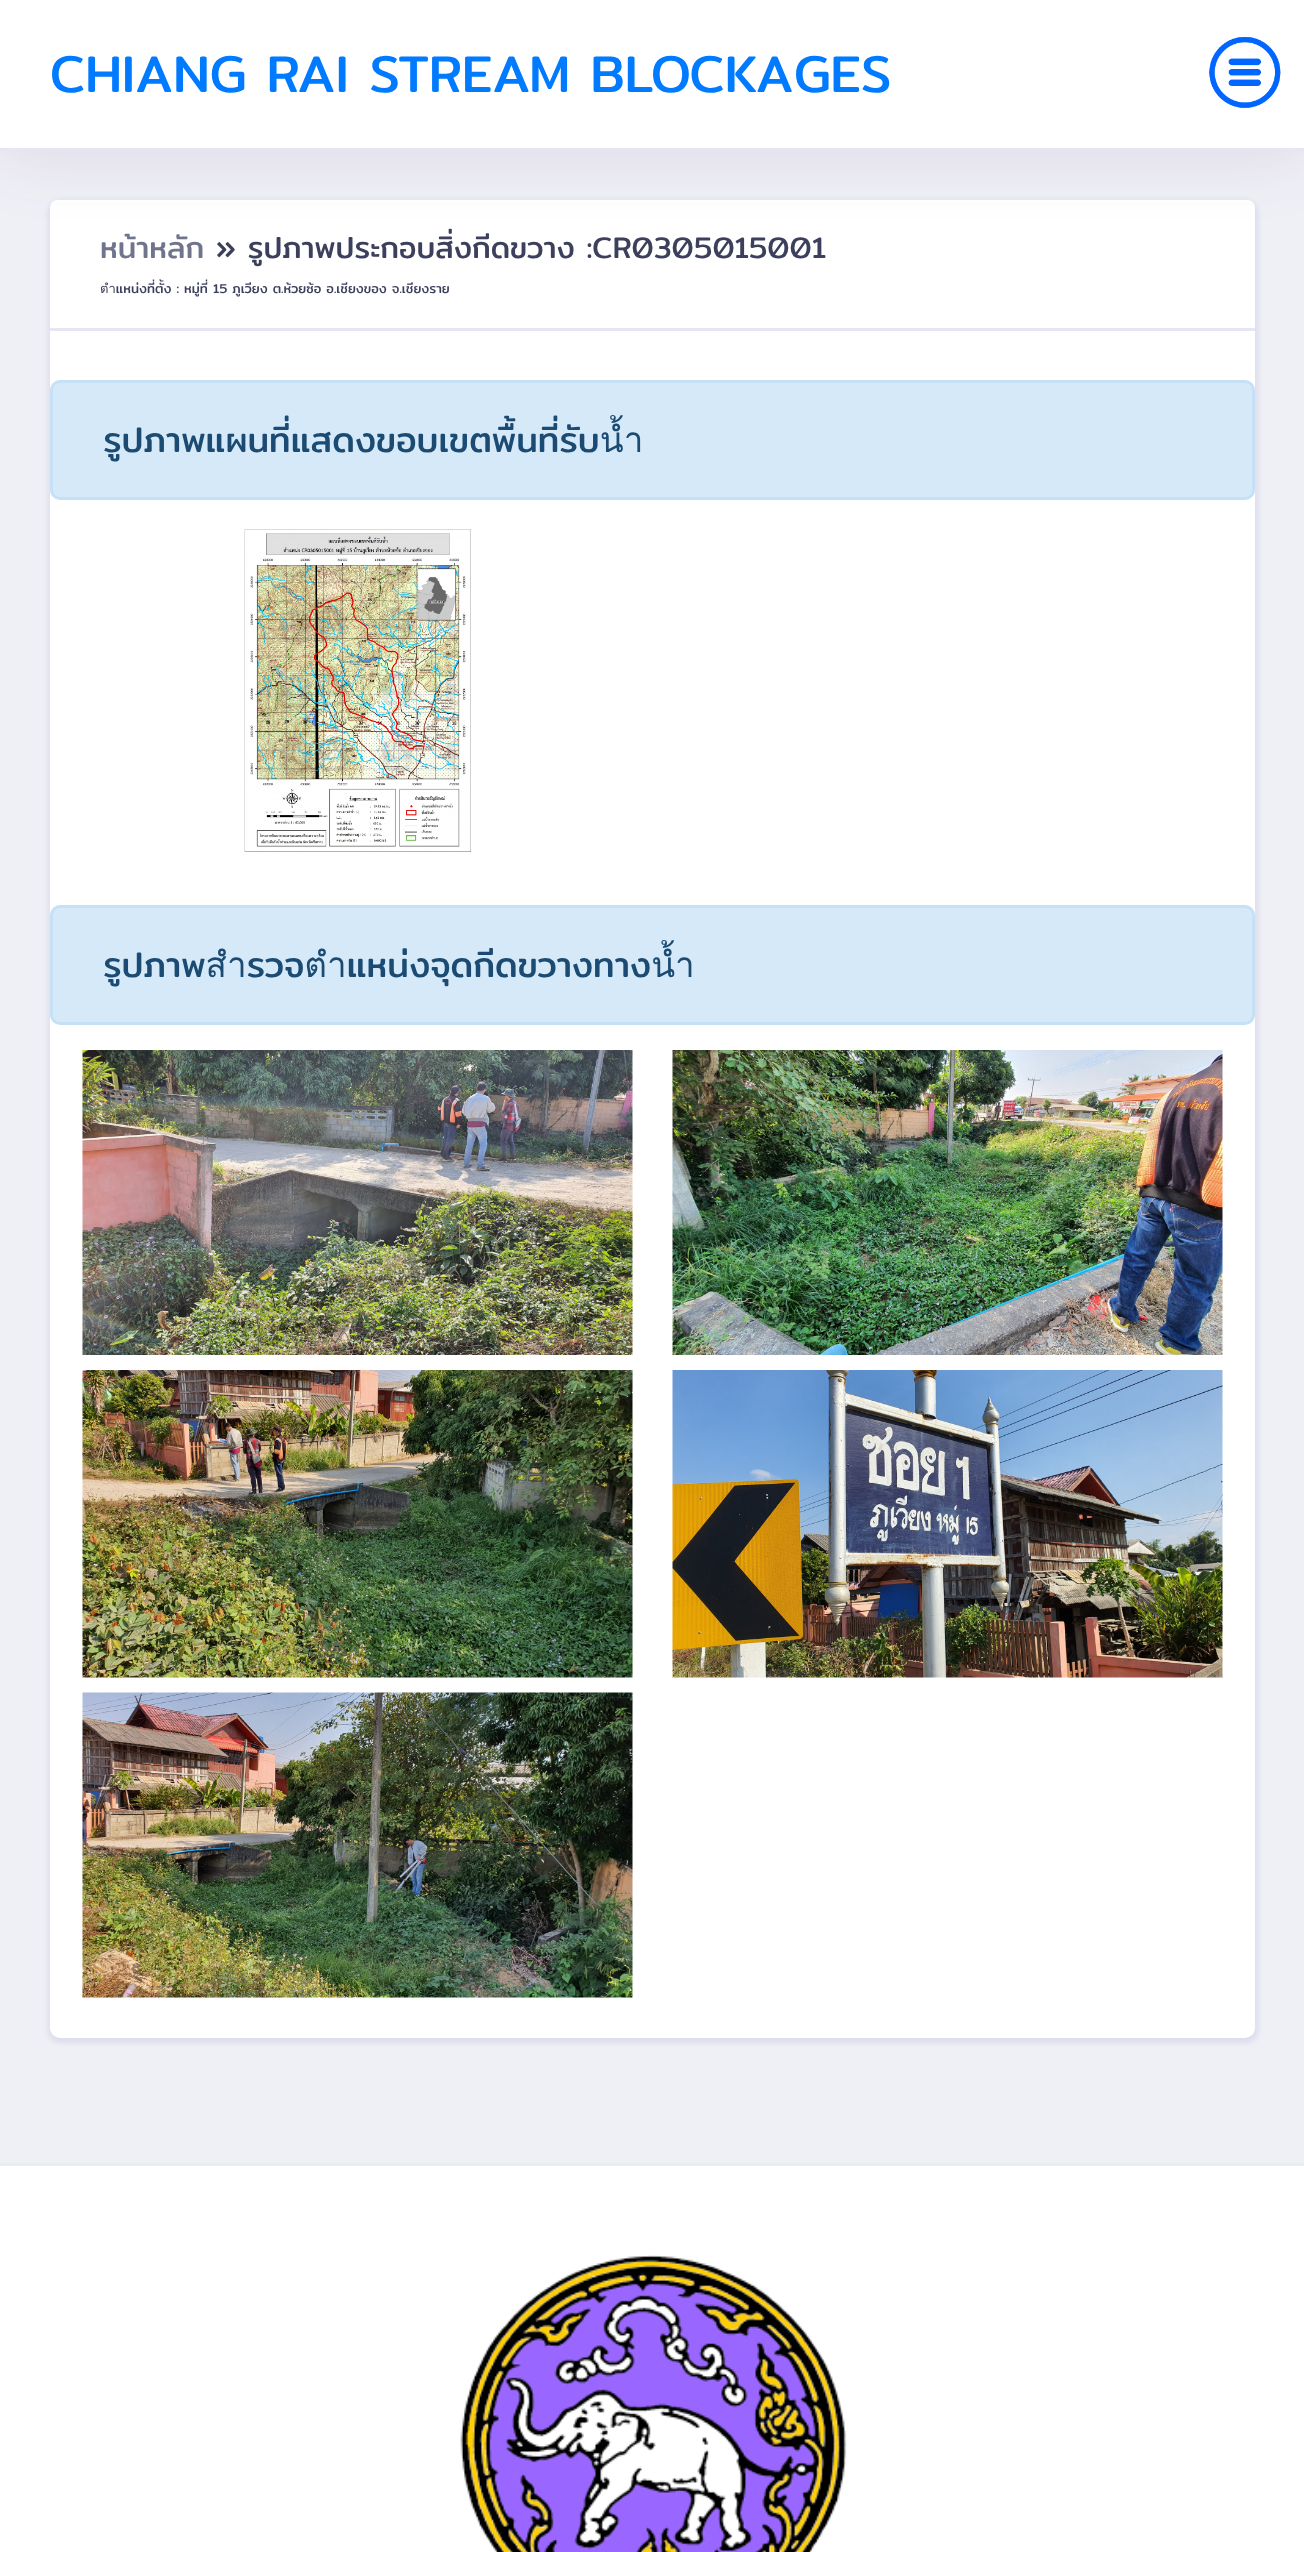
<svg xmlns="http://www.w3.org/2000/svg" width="1304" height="2552">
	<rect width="100%" height="100%" fill="#EFEFF6" />
	<rect x="48" y="200" width="1210" height="1843" rx="13" fill="#9A9ACC" fill-opacity="0.22" filter="blur(2.5px)" />
	<rect x="50" y="200" width="1205" height="1838" rx="10" fill="#FFFFFF" />
	<path d="M58 200H1247C1251.5 200 1255 203.5 1255 208V330H50V208C50 203.5 53.5 200 58 200Z" fill="#FFFFFF" />
	<rect x="0" y="0" width="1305" height="150" fill="#523F69" fill-opacity="0.13" filter="blur(35px)" />
	<rect x="0" y="0" width="1304" height="148" fill="#FFFFFF" />
	<rect x="0" y="148" width="1304" height="3" fill="#E6E6F2" />
	<text x="50" y="92" font-family="Mitr" font-size="52.25" fill="#007BFF">CHIANG RAI STREAM BLOCKAGES</text>
	<image x="1209" y="37" width="72" height="72" href="assets/img1.png" />
	<rect x="50" y="328" width="1205" height="3" fill="#E6E6F2" />
	<text x="100" y="258" font-family="Mitr" font-size="30" fill="#71748D">หน้าหลัก</text>
	<text x="216" y="258" font-family="Mitr" font-size="30" fill="#3D405C">» รูปภาพประกอบสิ่งกีดขวาง :CR0305015001</text>
	<text x="100" y="293" font-family="Mitr" font-size="13.05" fill="#3D405C">ตำแหน่งที่ตั้ง : หมู่ที่ 15 ภูเวียง ต.ห้วยซ้อ อ.เชียงของ จ.เชียงราย</text>
	<rect x="51.5" y="381.5" width="1202" height="117" rx="8.5" fill="#D6E9F8" stroke="#C6E0F5" stroke-width="3" />
	<text x="103" y="452" font-family="Mitr" font-size="35" fill="#1B4B72">รูปภาพแผนที่แสดงขอบเขตพื้นที่รับน้ำ</text>
	<image x="244" y="529" width="227" height="323" href="assets/img2.png" />
	<rect x="51.5" y="906.5" width="1202" height="117" rx="8.5" fill="#D6E9F8" stroke="#C6E0F5" stroke-width="3" />
	<text x="103" y="977" font-family="Mitr" font-size="35" fill="#1B4B72">รูปภาพสำรวจตำแหน่งจุดกีดขวางทางน้ำ</text>
	<image x="82" y="1050" width="551" height="305" href="assets/img3.png" />
	<image x="672" y="1050" width="551" height="305" href="assets/img4.png" />
	<image x="82" y="1370" width="551" height="308" href="assets/img5.png" />
	<image x="672" y="1370" width="551" height="308" href="assets/img6.png" />
	<image x="82" y="1692" width="551" height="306" href="assets/img7.png" />
	<rect x="0" y="2166" width="1304" height="386" fill="#FFFFFF" />
	<rect x="0" y="2163" width="1304" height="3" fill="#EAEDEF" />
	<image x="460" y="2255" width="387" height="297" href="assets/img8.png" />
</svg>
